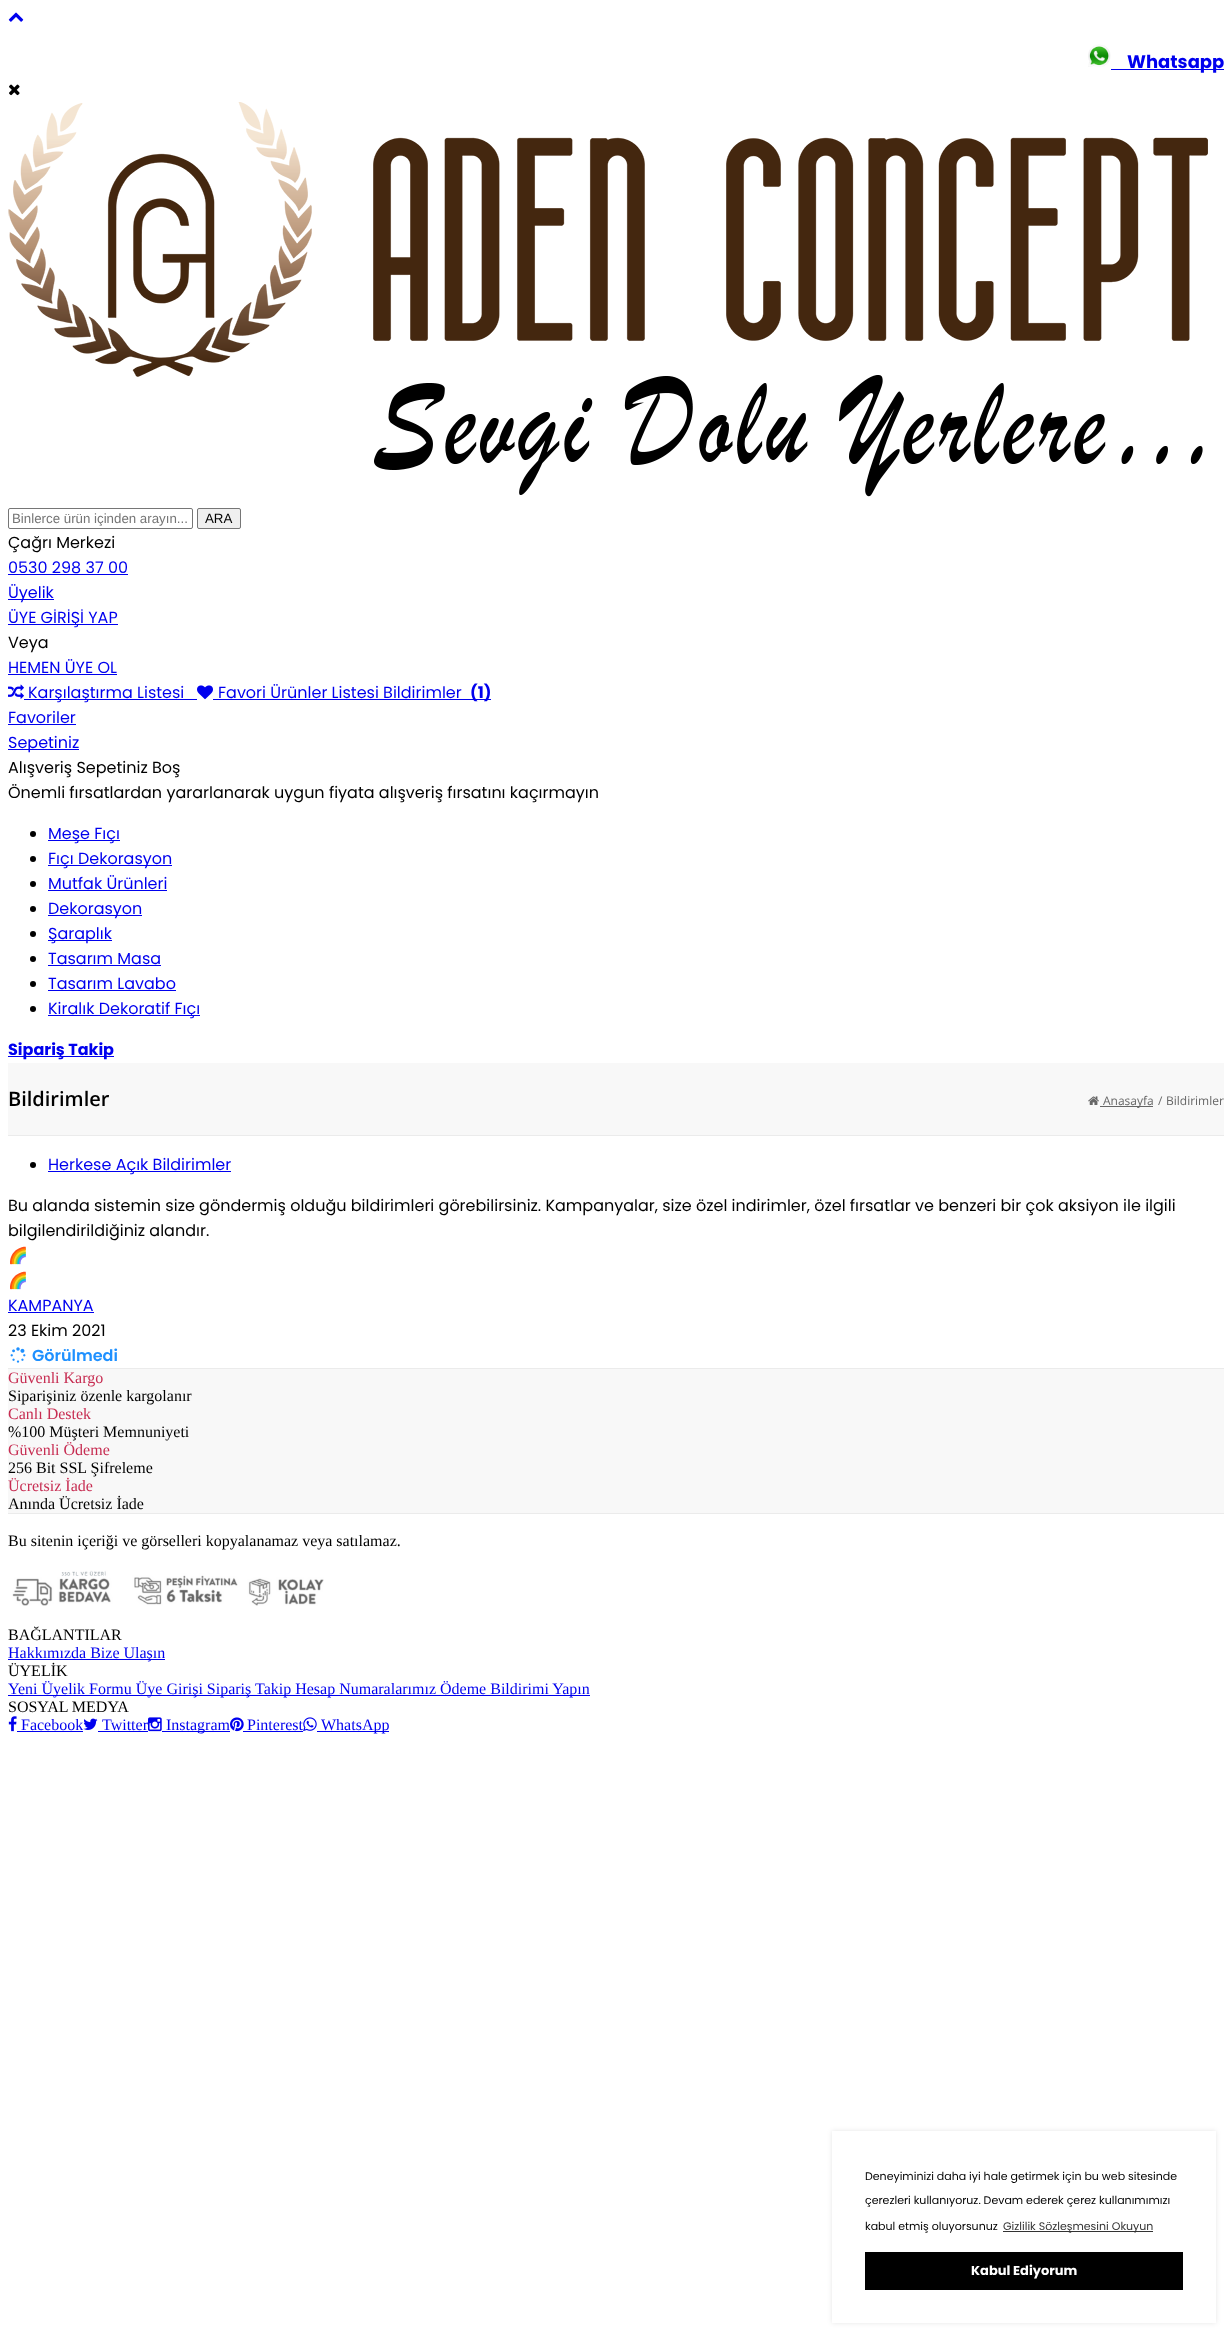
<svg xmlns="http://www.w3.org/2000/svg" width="1232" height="2339">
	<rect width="100%" height="100%" fill="#FFFFFF" />
	<image x="8" y="12" width="16" height="10" href="assets/img1.png" />
	<image x="1088" y="44" width="23" height="23" href="assets/img2.png" />
	<rect x="1111" y="69" width="113" height="1" fill="#0000EE" />
	<text x="1127" y="68" font-family="Poppins" font-size="18" font-weight="700" fill="#0000EE">Whatsapp</text>
	<image x="9" y="84" width="11" height="12" href="assets/img3.png" />
	<image x="8" y="102" width="1200" height="395" href="assets/img4.png" />
	<rect x="8.5" y="508.5" width="184" height="20" rx="1.5" fill="none" stroke="#767676" />
	<text x="12" y="523" font-family="Liberation Sans" font-size="13.3" fill="#757575">Binlerce ürün içinden arayın...</text>
	<rect x="197.5" y="508.5" width="43" height="20" rx="1.5" fill="#EFEFEF" stroke="#767676" />
	<text x="205" y="523" font-family="Liberation Sans" font-size="13.3" fill="#000000">ARA</text>
	<text x="8" y="548" font-family="Poppins" font-size="16" fill="#000000">Çağrı Merkezi</text>
	<text x="8" y="573" font-family="Poppins" font-size="16" fill="#0000EE">0530 298 37 00</text>
	<rect x="8" y="574" width="120" height="1" fill="#0000EE" />
	<rect x="8" y="599" width="46" height="1" fill="#0000EE" />
	<text x="8" y="598" font-family="Poppins" font-size="16" fill="#0000EE">Üyelik</text>
	<rect x="8" y="624" width="110" height="1" fill="#0000EE" />
	<text x="8" y="623" font-family="Poppins" font-size="16" fill="#0000EE">ÜYE GİRİŞİ YAP</text>
	<text x="8" y="648" font-family="Poppins" font-size="16" fill="#000000">Veya</text>
	<text x="8" y="673" font-family="Poppins" font-size="16" fill="#0000EE">HEMEN ÜYE OL</text>
	<rect x="8" y="674" width="109" height="1" fill="#0000EE" />
	<image x="8" y="684" width="16" height="15" href="assets/img5.png" />
	<rect x="24" y="699" width="173" height="1" fill="#0000EE" />
	<text x="28" y="698" font-family="Poppins" font-size="16" fill="#0000EE">Karşılaştırma Listesi</text>
	<image x="197" y="685" width="16" height="15" href="assets/img6.png" />
	<text x="218" y="698" font-family="Poppins" font-size="16" fill="#0000EE">Favori Ürünler Listesi Bildirimler</text>
	<rect x="213" y="699" width="278" height="1" fill="#0000EE" />
	<text x="470" y="698" font-family="Poppins" font-size="16" font-weight="700" fill="#0000EE">(1)</text>
	<text x="8" y="723" font-family="Poppins" font-size="16" fill="#0000EE">Favoriler</text>
	<rect x="8" y="724" width="68" height="1" fill="#0000EE" />
	<rect x="8" y="749" width="71" height="1" fill="#0000EE" />
	<text x="8" y="748" font-family="Poppins" font-size="16" fill="#0000EE">Sepetiniz</text>
	<g font-family="Poppins" font-size="16" fill="#000000">
		<text x="8" y="773">Alışveriş Sepetiniz Boş</text>
		<text x="8" y="798">Önemli fırsatlardan yararlanarak uygun fiyata alışveriş fırsatını kaçırmayın</text>
	</g>
	<circle cx="33" cy="834" r="3" fill="#000000" />
	<rect x="48" y="840" width="72" height="1" fill="#0000EE" />
	<text x="48" y="839" font-family="Poppins" font-size="16" fill="#0000EE">Meşe Fıçı</text>
	<circle cx="33" cy="859" r="3" fill="#000000" />
	<rect x="48" y="865" width="124" height="1" fill="#0000EE" />
	<text x="48" y="864" font-family="Poppins" font-size="16" fill="#0000EE">Fıçı Dekorasyon</text>
	<circle cx="33" cy="884" r="3" fill="#000000" />
	<text x="48" y="889" font-family="Poppins" font-size="16" fill="#0000EE">Mutfak Ürünleri</text>
	<rect x="48" y="890" width="119" height="1" fill="#0000EE" />
	<circle cx="33" cy="909" r="3" fill="#000000" />
	<rect x="48" y="915" width="94" height="1" fill="#0000EE" />
	<text x="48" y="914" font-family="Poppins" font-size="16" fill="#0000EE">Dekorasyon</text>
	<circle cx="33" cy="934" r="3" fill="#000000" />
	<rect x="48" y="940" width="64" height="1" fill="#0000EE" />
	<text x="48" y="939" font-family="Poppins" font-size="16" fill="#0000EE">Şaraplık</text>
	<circle cx="33" cy="959" r="3" fill="#000000" />
	<text x="48" y="964" font-family="Poppins" font-size="16" fill="#0000EE">Tasarım Masa</text>
	<rect x="48" y="965" width="113" height="1" fill="#0000EE" />
	<circle cx="33" cy="984" r="3" fill="#000000" />
	<text x="48" y="989" font-family="Poppins" font-size="16" fill="#0000EE">Tasarım Lavabo</text>
	<rect x="48" y="990" width="128" height="1" fill="#0000EE" />
	<circle cx="33" cy="1009" r="3" fill="#000000" />
	<rect x="48" y="1015" width="152" height="1" fill="#0000EE" />
	<text x="48" y="1014" font-family="Poppins" font-size="16" fill="#0000EE">Kiralık Dekoratif Fıçı</text>
	<rect x="8" y="1056" width="106" height="1" fill="#0000EE" />
	<text x="8" y="1055" font-family="Poppins" font-size="16" font-weight="700" fill="#0000EE">Sipariş Takip</text>
	<rect x="8" y="1063" width="1216" height="72" fill="#F8F8F8" />
	<rect x="8" y="1135" width="1216" height="1" fill="#EBEBEB" />
	<text x="8" y="1106" font-family="Open Sans" font-size="20" font-weight="600" fill="#000000">Bildirimler</text>
	<image x="1088" y="1096" width="11" height="9" href="assets/img7.png" />
	<rect x="1100" y="1106" width="53" height="1" fill="#666666" />
	<g font-family="Open Sans" font-size="12" fill="#666666">
		<text x="1103" y="1105">Anasayfa</text>
		<text x="1158" y="1105">/</text>
		<text x="1166" y="1105">Bildirimler</text>
	</g>
	<circle cx="33" cy="1165" r="3" fill="#000000" />
	<rect x="48" y="1171" width="183" height="1" fill="#0000EE" />
	<text x="48" y="1170" font-family="Poppins" font-size="16" fill="#0000EE">Herkese Açık Bildirimler</text>
	<g font-family="Poppins" font-size="16" fill="#000000">
		<text x="8" y="1211">Bu alanda sistemin size göndermiş olduğu bildirimleri görebilirsiniz. Kampanyalar, size özel indirimler, özel fırsatlar ve benzeri bir çok aksiyon ile ilgili</text>
		<text x="8" y="1236">bilgilendirildiğiniz alandır.</text>
	</g>
	<g font-family="Noto Color Emoji" font-size="16" fill="#000000">
		<text x="8" y="1261">🌈</text>
		<text x="8" y="1286">🌈</text>
	</g>
	<text x="8" y="1311" font-family="Poppins" font-size="16" fill="#0000EE">KAMPANYA</text>
	<rect x="8" y="1312" width="86" height="1" fill="#0000EE" />
	<text x="8" y="1336" font-family="Poppins" font-size="16" fill="#000000">23 Ekim 2021</text>
	<image x="10" y="1347" width="16" height="16" href="assets/img8.png" />
	<text x="32" y="1361" font-family="Poppins" font-size="16" font-weight="600" fill="#1E90FF">Görülmedi</text>
	<rect x="8" y="1369" width="1216" height="144" fill="#F8F8F8" />
	<rect x="8" y="1368" width="1216" height="1" fill="#EBEBEB" />
	<rect x="8" y="1513" width="1216" height="1" fill="#EBEBEB" />
	<text x="8" y="1383" font-family="Liberation Serif" font-size="16" fill="#C72D52">Güvenli Kargo</text>
	<text x="8" y="1401" font-family="Liberation Serif" font-size="16" fill="#000000">Siparişiniz özenle kargolanır</text>
	<text x="8" y="1419" font-family="Liberation Serif" font-size="16" fill="#C72D52">Canlı Destek</text>
	<text x="8" y="1437" font-family="Liberation Serif" font-size="16" fill="#000000">%100 Müşteri Memnuniyeti</text>
	<text x="8" y="1455" font-family="Liberation Serif" font-size="16" fill="#C72D52">Güvenli Ödeme</text>
	<text x="8" y="1473" font-family="Liberation Serif" font-size="16" fill="#000000">256 Bit SSL Şifreleme</text>
	<text x="8" y="1491" font-family="Liberation Serif" font-size="16" fill="#C72D52">Ücretsiz İade</text>
	<g font-family="Liberation Serif" font-size="16" fill="#000000">
		<text x="8" y="1509">Anında Ücretsiz İade</text>
		<text x="8" y="1546">Bu sitenin içeriği ve görselleri kopyalanamaz veya satılamaz.</text>
	</g>
	<image x="12" y="1570" width="312" height="36" href="assets/img9.png" />
	<text x="8" y="1640" font-family="Liberation Serif" font-size="16" fill="#000000">BAĞLANTILAR</text>
	<rect x="8" y="1659" width="157" height="1" fill="#0000EE" />
	<text x="8" y="1658" font-family="Liberation Serif" font-size="16" fill="#0000EE">Hakkımızda Bize Ulaşın</text>
	<text x="8" y="1676" font-family="Liberation Serif" font-size="16" fill="#000000">ÜYELİK</text>
	<rect x="8" y="1695" width="582" height="1" fill="#0000EE" />
	<text x="8" y="1694" font-family="Liberation Serif" font-size="16" fill="#0000EE">Yeni Üyelik Formu Üye Girişi Sipariş Takip Hesap Numaralarımız Ödeme Bildirimi Yapın</text>
	<text x="8" y="1712" font-family="Liberation Serif" font-size="16" fill="#000000">SOSYAL MEDYA</text>
	<image x="8" y="1716" width="9" height="16" href="assets/img10.png" />
	<text x="21" y="1730" font-family="Liberation Serif" font-size="16" fill="#0000EE">Facebook</text>
	<rect x="17" y="1731" width="66" height="1" fill="#0000EE" />
	<image x="83" y="1718" width="15" height="12" href="assets/img11.png" />
	<text x="102" y="1730" font-family="Liberation Serif" font-size="16" fill="#0000EE">Twitter</text>
	<rect x="98" y="1731" width="50" height="1" fill="#0000EE" />
	<image x="148" y="1717" width="14" height="15" href="assets/img12.png" />
	<rect x="162" y="1731" width="68" height="1" fill="#0000EE" />
	<text x="166" y="1730" font-family="Liberation Serif" font-size="16" fill="#0000EE">Instagram</text>
	<image x="230" y="1717" width="14" height="15" href="assets/img13.png" />
	<text x="247" y="1730" font-family="Liberation Serif" font-size="16" fill="#0000EE">Pinterest</text>
	<rect x="243" y="1731" width="60" height="1" fill="#0000EE" />
	<image x="303" y="1717" width="14" height="15" href="assets/img14.png" />
	<rect x="317" y="1731" width="72" height="1" fill="#0000EE" />
	<text x="321" y="1730" font-family="Liberation Serif" font-size="16" fill="#0000EE">WhatsApp</text>
	<rect x="832" y="2131" width="384" height="192" fill="#000000" fill-opacity="0.1" filter="blur(2.5px)" />
	<rect x="832" y="2131" width="384" height="192" fill="#FFFFFF" />
	<g font-family="Poppins" font-size="11" fill="#000000">
		<text x="865" y="2180">Deneyiminizi daha iyi hale getirmek için bu web sitesinde</text>
		<text x="865" y="2204">çerezleri kullanıyoruz. Devam ederek çerez kullanımımızı</text>
		<text x="865" y="2230">kabul etmiş oluyorsunuz</text>
	</g>
	<rect x="1003" y="2231" width="150" height="1" fill="#333333" />
	<text x="1003" y="2230" font-family="Poppins" font-size="11" fill="#333333">Gizlilik Sözleşmesini Okuyun</text>
	<rect x="865" y="2252" width="318" height="38" fill="#000000" />
	<text x="971" y="2275" font-family="Poppins" font-size="13" font-weight="700" fill="#FFFFFF">Kabul Ediyorum</text>
</svg>
